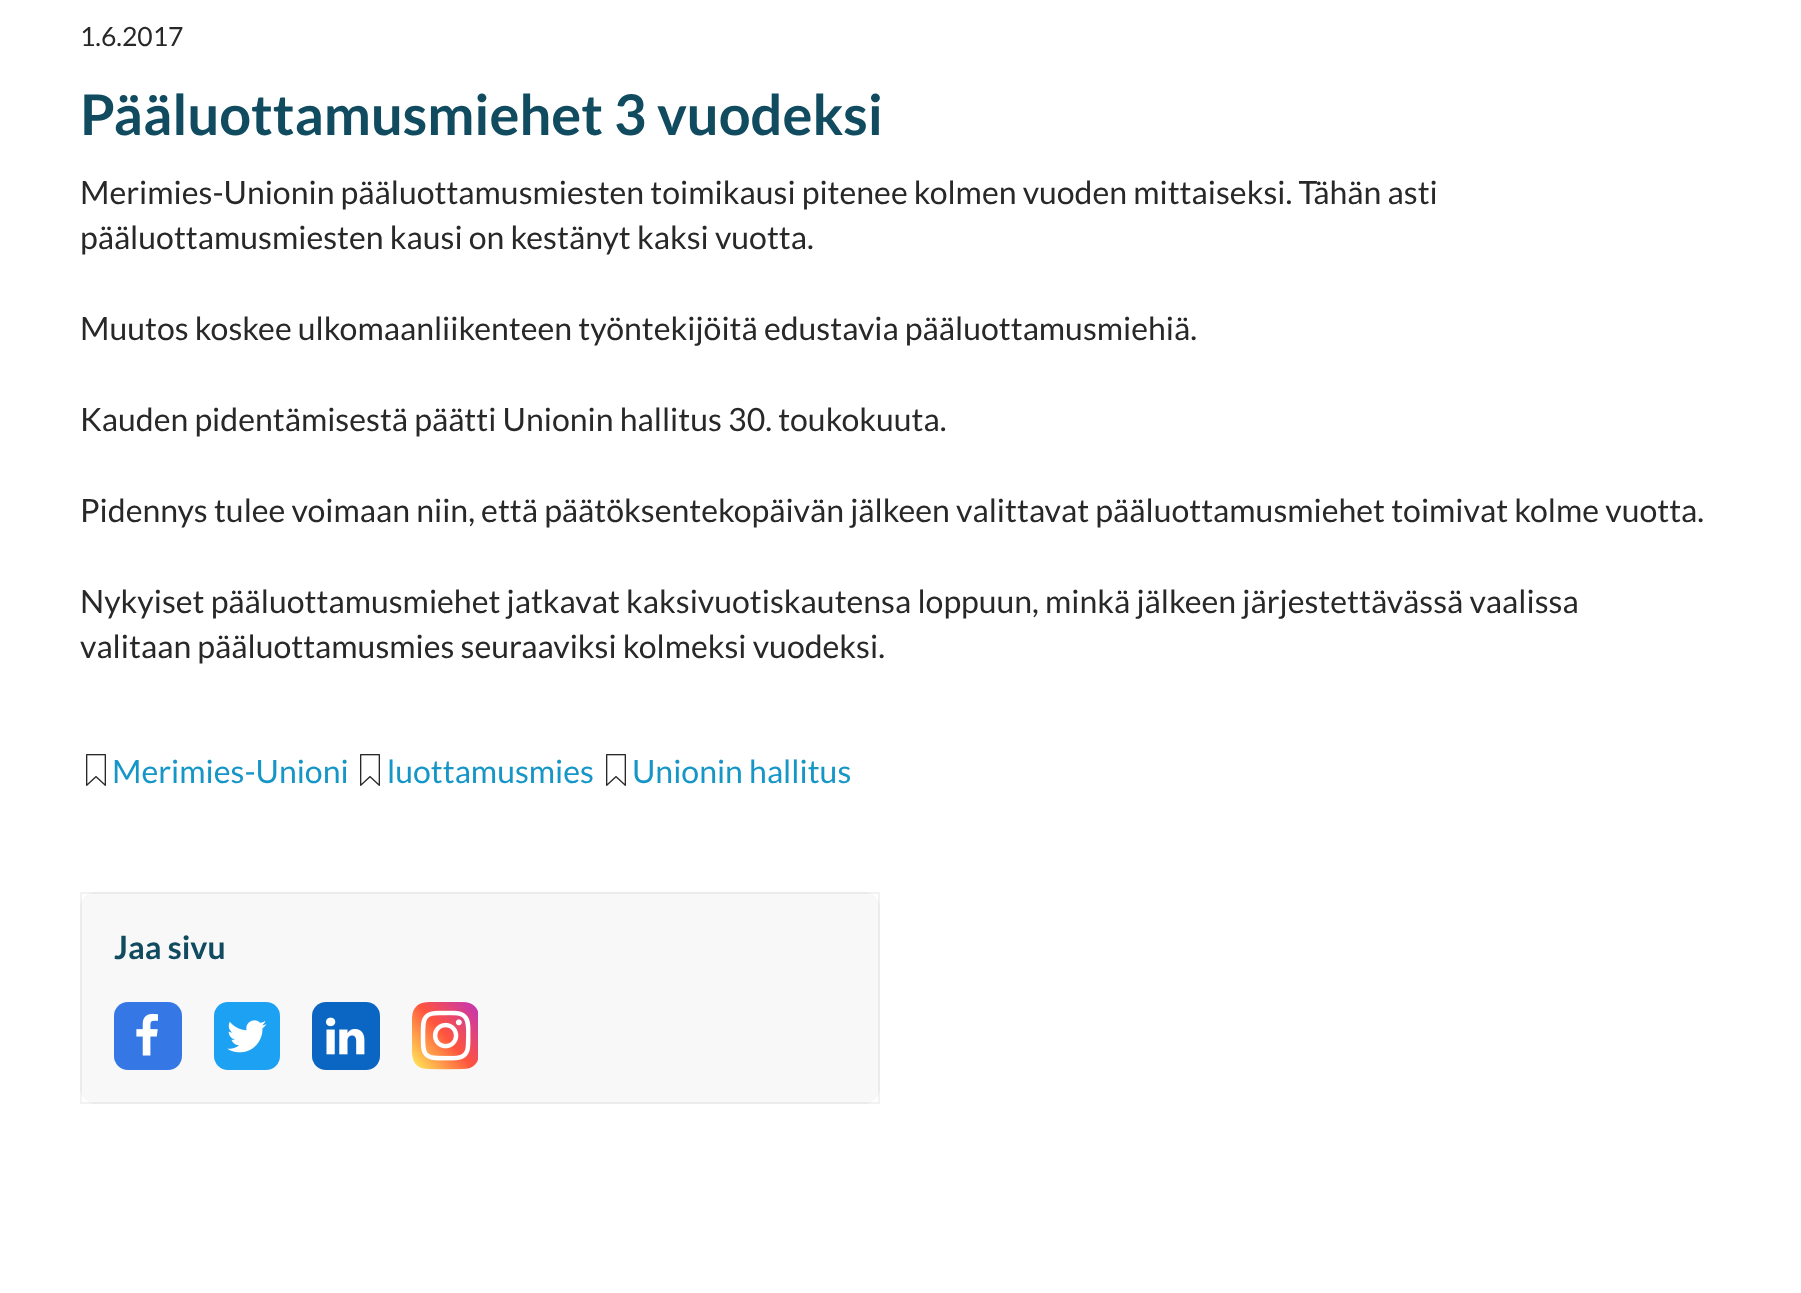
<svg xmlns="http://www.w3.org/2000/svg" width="1801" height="1293">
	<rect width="100%" height="100%" fill="#FFFFFF" />
	<text x="80" y="46" font-family="Lato" font-size="26.5" fill="#282828">1.6.2017</text>
	<text x="80" y="135" font-family="Lato" font-size="56" font-weight="700" fill="#114B5F">Pääluottamusmiehet 3 vuodeksi</text>
	<g font-family="Lato" font-size="32" fill="#282828">
		<text x="80" y="204">Merimies-Unionin pääluottamusmiesten toimikausi pitenee kolmen vuoden mittaiseksi. Tähän asti</text>
		<text x="80" y="249">pääluottamusmiesten kausi on kestänyt kaksi vuotta.</text>
		<text x="80" y="340">Muutos koskee ulkomaanliikenteen työntekijöitä edustavia pääluottamusmiehiä.</text>
		<text x="80" y="431">Kauden pidentämisestä päätti Unionin hallitus 30. toukokuuta.</text>
		<text x="80" y="522">Pidennys tulee voimaan niin, että päätöksentekopäivän jälkeen valittavat pääluottamusmiehet toimivat kolme vuotta.</text>
		<text x="80" y="613">Nykyiset pääluottamusmiehet jatkavat kaksivuotiskautensa loppuun, minkä jälkeen järjestettävässä vaalissa</text>
		<text x="80" y="658">valitaan pääluottamusmies seuraaviksi kolmeksi vuodeksi.</text>
	</g>
	<image x="86" y="754" width="20" height="32" href="assets/img1.png" />
	<text x="112" y="783" font-family="Lato" font-size="32" fill="#1696C7">Merimies-Unioni</text>
	<image x="360" y="754" width="20" height="32" href="assets/img1.png" />
	<text x="387" y="783" font-family="Lato" font-size="32" fill="#1696C7">luottamusmies</text>
	<image x="606" y="754" width="20" height="32" href="assets/img1.png" />
	<text x="632" y="783" font-family="Lato" font-size="32" fill="#1696C7">Unionin hallitus</text>
	<rect x="80" y="892" width="800" height="212" rx="16" fill="#F8F8F8" />
	<rect x="81" y="893" width="798" height="210" fill="none" stroke="#000000" stroke-opacity="0.05" stroke-width="2" />
	<text x="114" y="959" font-family="Lato" font-size="32" font-weight="700" fill="#114B5F">Jaa sivu</text>
	<rect x="114" y="1002" width="68" height="68" rx="14" fill="#3578E5" />
	<image x="136" y="1013" width="22" height="43" href="assets/img2.png" />
	<rect x="214" y="1002" width="66" height="68" rx="14" fill="#1DA1F2" />
	<image x="227" y="1020" width="40" height="33" href="assets/img3.png" />
	<rect x="312" y="1002" width="68" height="68" rx="14" fill="#0A66C2" />
	<image x="326" y="1017" width="39" height="38" href="assets/img4.png" />
	<image x="412" y="1002" width="66" height="68" href="assets/img5.png" />
</svg>
